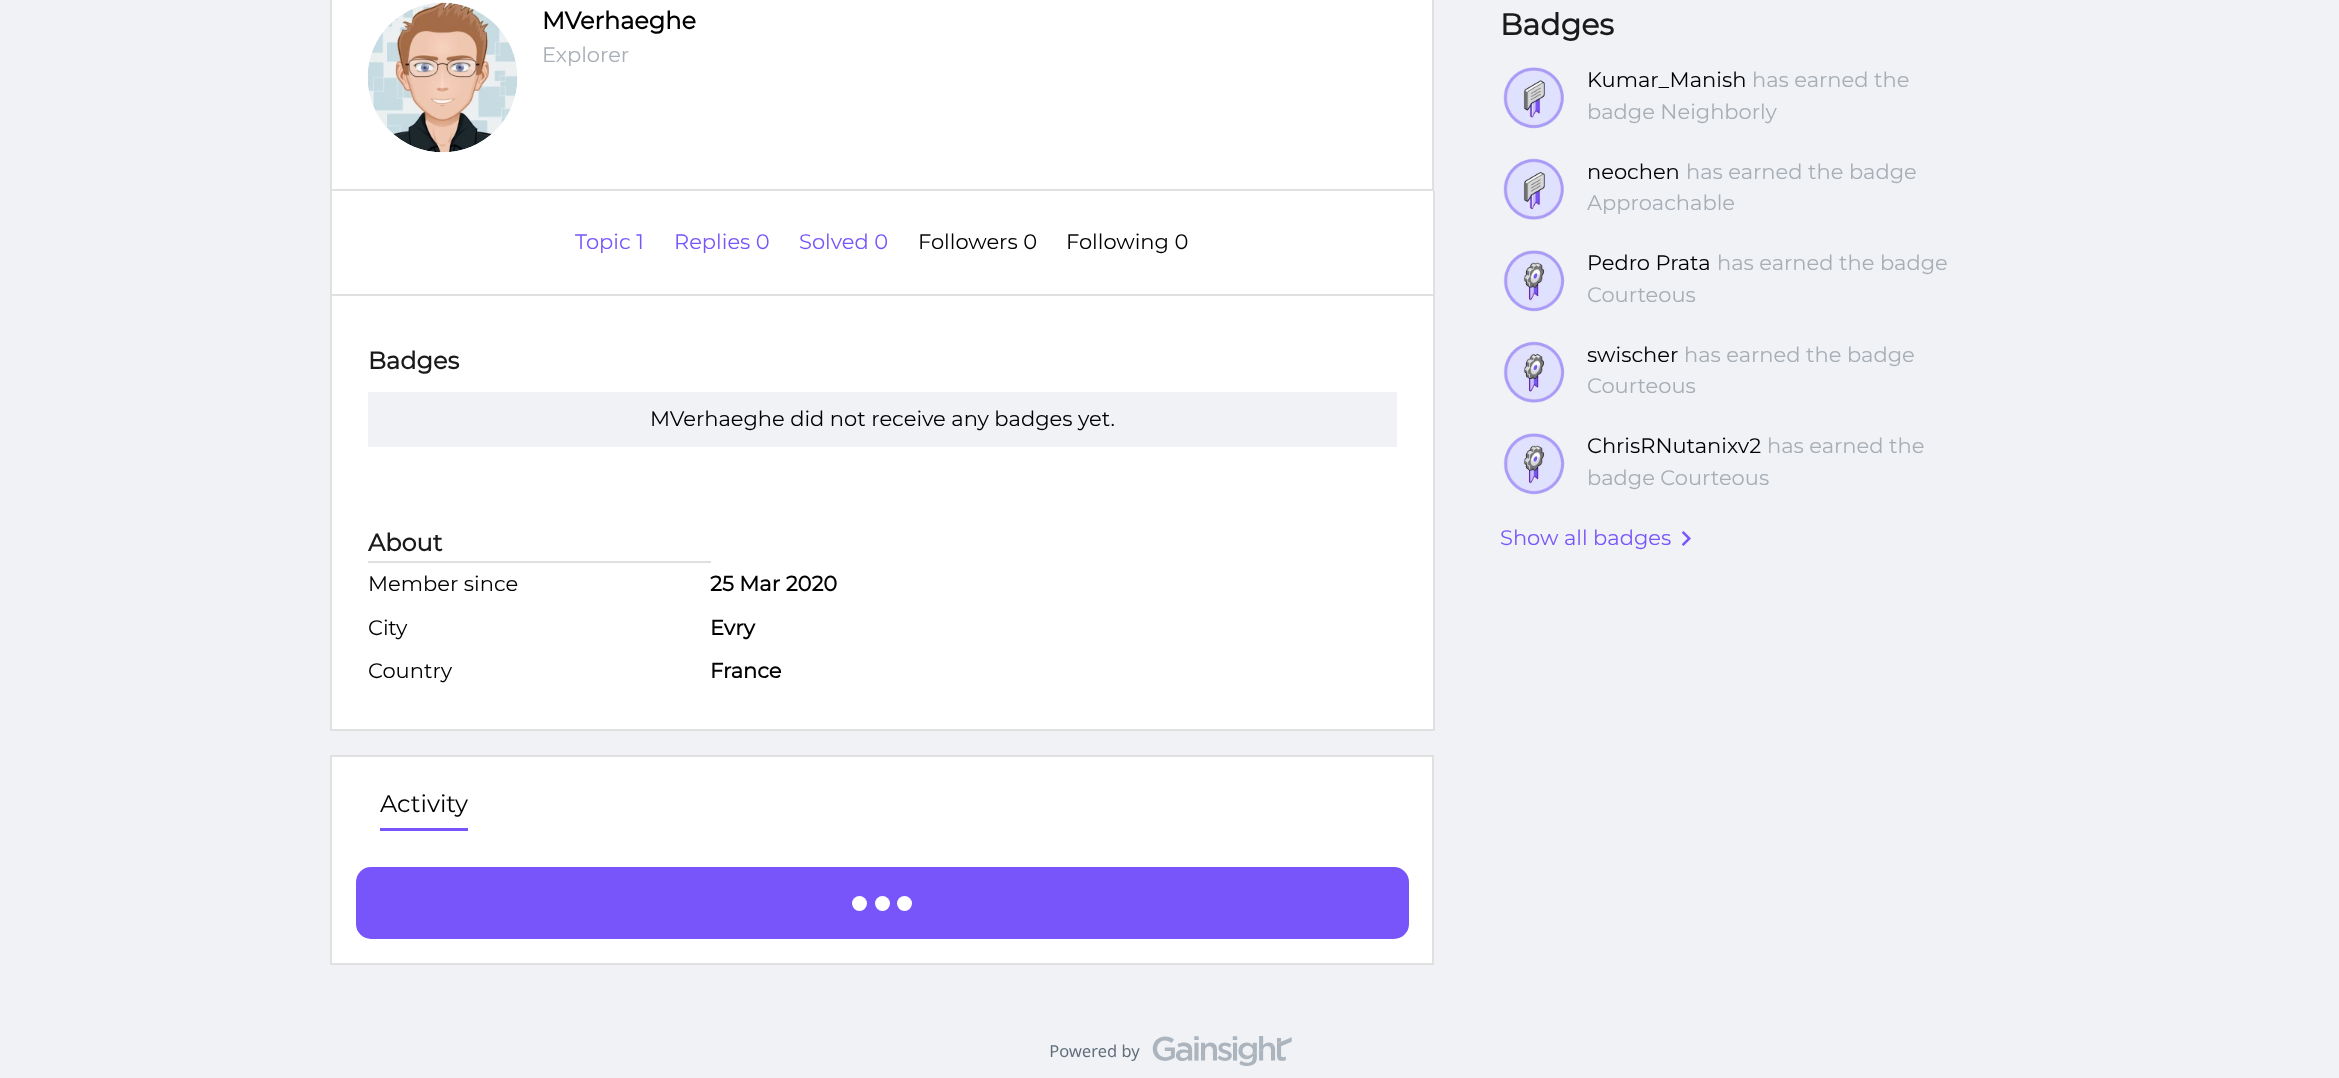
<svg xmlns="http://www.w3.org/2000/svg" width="2339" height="1078">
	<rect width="100%" height="100%" fill="#F0F2F6" />
	<rect x="331" y="-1" width="1102" height="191" fill="#FFFFFF" stroke="#E0E0E0" stroke-width="2" />
	<image x="367" y="2" width="151" height="151" href="assets/img1.png" />
	<text x="542" y="29" font-family="Montserrat" font-size="24" font-weight="700" fill="#000000">MVerhaeghe</text>
	<text x="542" y="62" font-family="Montserrat" font-size="21" font-weight="100" fill="#A7AEB5">Explorer</text>
	<rect x="332" y="191" width="1101" height="103" fill="#FFFFFF" />
	<rect x="1433" y="191" width="2" height="540" fill="#E0E0E0" />
	<rect x="330" y="294" width="1104" height="2" fill="#E0E0E0" />
	<rect x="330" y="191" width="2" height="105" fill="#E0E0E0" />
	<g font-family="Montserrat" font-size="21" font-weight="100" fill="#7855FA">
		<text x="575" y="249">Topic 1</text>
		<text x="674" y="249">Replies 0</text>
		<text x="799" y="249">Solved 0</text>
	</g>
	<g font-family="Montserrat" font-size="21" font-weight="100" fill="#000000">
		<text x="918" y="249">Followers 0</text>
		<text x="1066" y="249">Following 0</text>
	</g>
	<rect x="332" y="296" width="1101" height="433" fill="#FFFFFF" />
	<rect x="330" y="296" width="2" height="187" fill="#E0E0E0" />
	<text x="368" y="369" font-family="Montserrat" font-size="24" font-weight="700" fill="#1A1A1A">Badges</text>
	<rect x="368" y="392" width="1029" height="55" fill="#F0F2F6" />
	<text x="650" y="426" font-family="Montserrat" font-size="21" font-weight="100" fill="#000000">MVerhaeghe did not receive any badges yet.</text>
	<rect x="330" y="729" width="1104" height="2" fill="#E0E0E0" />
	<rect x="330" y="483" width="2" height="248" fill="#E0E0E0" />
	<rect x="368" y="561" width="343" height="2" fill="#E0E0E0" />
	<text x="368" y="551" font-family="Montserrat" font-size="24" font-weight="700" fill="#1A1A1A">About</text>
	<text x="368" y="591" font-family="Montserrat" font-size="21" font-weight="100" fill="#000000">Member since</text>
	<text x="710" y="591" font-family="Montserrat" font-size="21" font-weight="700" fill="#000000">25 Mar 2020</text>
	<text x="368" y="635" font-family="Montserrat" font-size="21" font-weight="100" fill="#000000">City</text>
	<text x="710" y="635" font-family="Montserrat" font-size="21" font-weight="700" fill="#000000">Evry</text>
	<text x="368" y="678" font-family="Montserrat" font-size="21" font-weight="100" fill="#000000">Country</text>
	<text x="710" y="678" font-family="Montserrat" font-size="21" font-weight="700" fill="#000000">France</text>
	<rect x="331" y="756" width="1102" height="208" fill="#FFFFFF" stroke="#E0E0E0" stroke-width="2" />
	<rect x="380" y="828" width="88" height="3" fill="#7855FA" />
	<text x="380" y="812" font-family="Montserrat" font-size="24" font-weight="100" fill="#000000">Activity</text>
	<rect x="357" y="868" width="1051" height="70" rx="14" fill="#7855FA" stroke="#7855FA" stroke-width="2" />
	<circle cx="882.5" cy="903.5" r="7.5" fill="#FFFFFF" />
	<circle cx="859.5" cy="903.5" r="7.5" fill="#FFFFFF" />
	<circle cx="904.5" cy="903.5" r="7.5" fill="#FFFFFF" />
	<text x="1500" y="35" font-family="Montserrat" font-size="30" font-weight="700" fill="#1A1A1A">Badges</text>
	<image x="1503" y="67" width="61" height="62" href="assets/img2.png" />
	<text x="1587" y="87" font-family="Montserrat" font-size="21" font-weight="100" fill="#000000">Kumar_Manish</text>
	<g font-family="Montserrat" font-size="21" font-weight="100" fill="#A7AEB5">
		<text x="1752" y="87">has earned the</text>
		<text x="1587" y="119">badge Neighborly</text>
	</g>
	<image x="1503" y="158" width="61" height="62" href="assets/img3.png" />
	<text x="1587" y="179" font-family="Montserrat" font-size="21" font-weight="100" fill="#000000">neochen</text>
	<g font-family="Montserrat" font-size="21" font-weight="100" fill="#A7AEB5">
		<text x="1686" y="179">has earned the badge</text>
		<text x="1587" y="210">Approachable</text>
	</g>
	<image x="1503" y="250" width="62" height="62" href="assets/img4.png" />
	<text x="1587" y="270" font-family="Montserrat" font-size="21" font-weight="100" fill="#000000">Pedro Prata</text>
	<g font-family="Montserrat" font-size="21" font-weight="100" fill="#A7AEB5">
		<text x="1717" y="270">has earned the badge</text>
		<text x="1587" y="302">Courteous</text>
	</g>
	<image x="1503" y="341" width="62" height="62" href="assets/img5.png" />
	<text x="1587" y="362" font-family="Montserrat" font-size="21" font-weight="100" fill="#000000">swischer</text>
	<g font-family="Montserrat" font-size="21" font-weight="100" fill="#A7AEB5">
		<text x="1684" y="362">has earned the badge</text>
		<text x="1587" y="393">Courteous</text>
	</g>
	<image x="1503" y="433" width="62" height="62" href="assets/img4.png" />
	<text x="1587" y="453" font-family="Montserrat" font-size="21" font-weight="100" fill="#000000">ChrisRNutanixv2</text>
	<g font-family="Montserrat" font-size="21" font-weight="100" fill="#A7AEB5">
		<text x="1767" y="453">has earned the</text>
		<text x="1587" y="485">badge Courteous</text>
	</g>
	<text x="1500" y="545" font-family="Montserrat" font-size="21" font-weight="100" fill="#7855FA">Show all badges</text>
	<image x="1681" y="531" width="10" height="15" href="assets/img6.png" />
	<image x="1050" y="1036" width="242" height="30" href="assets/img7.png" />
</svg>
